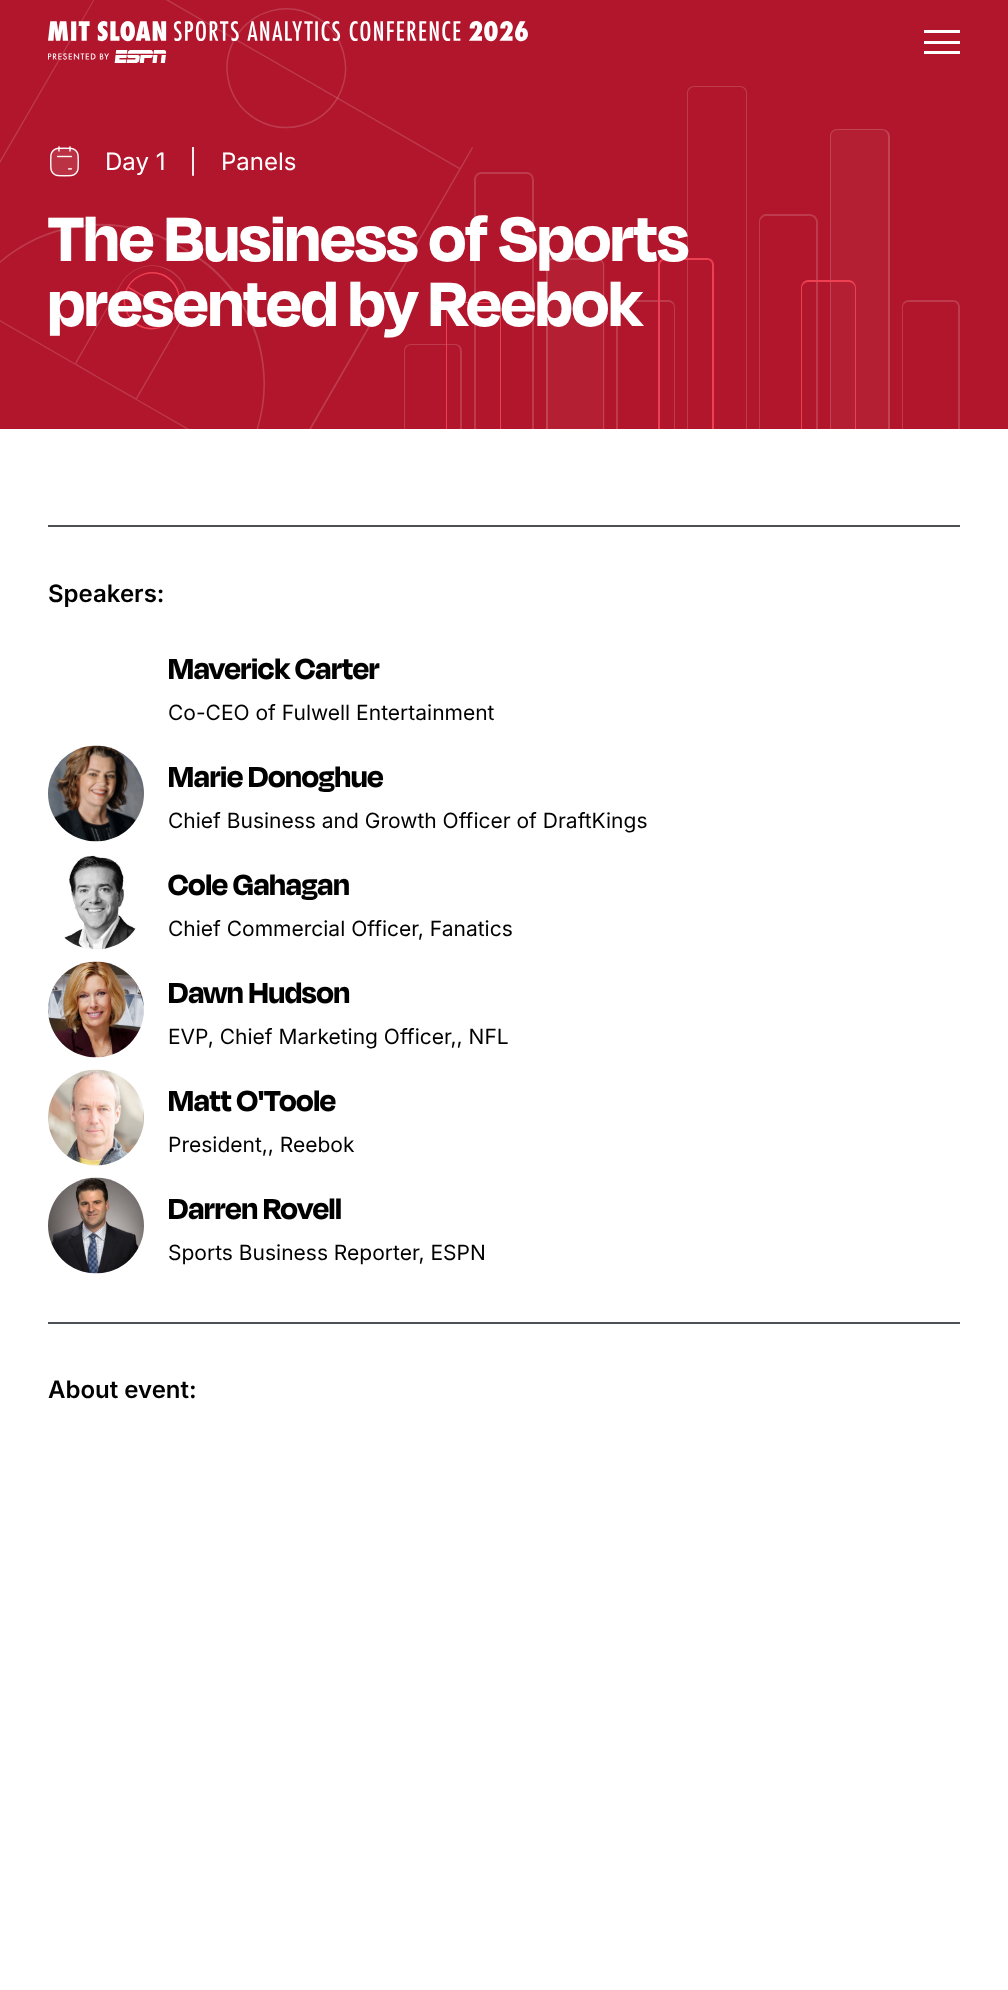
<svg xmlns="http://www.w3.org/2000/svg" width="1008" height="1990">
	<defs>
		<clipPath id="clip1"><rect x="0" y="0" width="1008" height="429" /></clipPath>
	</defs>
	<rect width="100%" height="100%" fill="#FFFFFF" />
	<rect x="0" y="0" width="1008" height="429" fill="#B2162C" />
	<path d="M-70 281L124-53H125L-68 281Z" fill="#BE3B4E" />
	<g clip-path="url(#clip1)">
		<path d="M473 148L280 483L279 481L472 147Z" fill="#BE3B4E" />
	</g>
	<path d="M113-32L460 168L459 169L112-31Z" fill="#FFFFFF" fill-opacity="0.16" />
	<path d="M316 17C344 33 354 69.5 337.5 98C321 126 285 136 256.5 119.5C228.5 103 218.5 67 235 38.5C251.5 10 287.5 .5 316 17Z" fill="none" stroke="#FFFFFF" stroke-opacity="0.16" stroke-width="1.5" />
	<image x="48" y="21" width="480" height="42" href="assets/img1.png" />
	<rect x="924" y="30" width="36" height="3" fill="#FFFFFF" />
	<rect x="924" y="41" width="36" height="3" fill="#FFFFFF" />
	<rect x="924" y="51" width="36" height="3" fill="#FFFFFF" />
	<g clip-path="url(#clip1)">
		<path d="M280 483L-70 281H-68L279 481Z" fill="#BE3B4E" />
		<path d="M177 244L188 250C262 293 287 387 244 461L-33 301C10 227 104 202 177 244ZM177 246L187 252C260 294 285 387 243 460L-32 302C10 229 104 204 177 246Z" fill="#BE3B4E" fill-rule="evenodd" />
	</g>
	<path d="M170 270C187 279 193 302 183 319L137 399L75 363L121 283C131 266 153 260 170 270ZM169 271C186 280 191 301 182 318L136 398L76 364L122 283C132 267 153 261 169 271Z" fill="#FFFFFF" fill-opacity="0.16" fill-rule="evenodd" />
	<path d="M166 276.5C179 284.5 183.5 301.5 176 314.5C168.5 328 151.5 332.5 138 325C125 317 120.5 300 128 287C135.5 273.5 152.5 269 166 276.5Z" fill="none" stroke="#ED4052" stroke-width="1.5" />
	<path d="M129 287L176 314L175 315L128 288Z" fill="#ED4052" />
	<path d="M411 344H455C459 344 462 347 462 351V429H404V351C404 347 407 344 411 344ZM411 345H455C458 345 460 348 460 351V429H405V351C405 348 408 345 411 345Z" fill="#BE3B4E" fill-rule="evenodd" />
	<path d="M481 172H527C531 172 534 176 534 180V429H474V180C474 176 477 172 481 172ZM481 174H527C530 174 532 177 532 180V429H476V180C476 177 478 174 481 174Z" fill="#BE3B4E" fill-rule="evenodd" />
	<path d="M453 302H494C498 302 501 305 501 309V429H446V309C446 305 449 302 453 302ZM453 303H494C497 303 500 306 500 309V429H447V309C447 306 450 303 453 303Z" fill="#ED4052" fill-rule="evenodd" />
	<path d="M554 258H597C601.5 258 605 261.5 605 266V429H546V266C546 261.5 549.5 258 554 258Z" fill="#B51F34" />
	<path d="M553 258H597C601 258 604 261 604 265V429H546V265C546 261 549 258 553 258ZM553 260H597C600 260 603 262 603 265V429H548V265C548 262 550 260 553 260Z" fill="#FFFFFF" fill-opacity="0.16" fill-rule="evenodd" />
	<path d="M624 300H668C672 300 675 303 675 307V429H616V307C616 303 620 300 624 300ZM624 302H668C671 302 674 304 674 307V429H618V307C618 304 621 302 624 302Z" fill="#BE3B4E" fill-rule="evenodd" />
	<path d="M694 86H740C744 86 747 89 747 93V429H687V93C687 89 690 86 694 86ZM694 87H740C743 87 746 90 746 93V429H688V93C688 90 691 87 694 87Z" fill="#BE3B4E" fill-rule="evenodd" />
	<path d="M666 258H707C711 258 714 261 714 265V429H658V265C658 261 662 258 666 258ZM666 260H707C710 260 712 262 712 265V429H660V265C660 262 663 260 666 260Z" fill="#ED4052" fill-rule="evenodd" />
	<path d="M766 214H810C814 214 818 218 818 222V429H759V222C759 218 762 214 766 214ZM766 216H810C813 216 816 219 816 222V429H760V222C760 219 763 216 766 216Z" fill="#BE3B4E" fill-rule="evenodd" />
	<path d="M838 129H882C886.5 129 890 132.5 890 137V429H830V137C830 132.5 833.5 129 838 129Z" fill="#B51F34" />
	<path d="M837 129H882C886 129 890 132 890 136V429H830V136C830 132 833 129 837 129ZM837 130H882C885 130 888 133 888 136V429H831V136C831 133 834 130 837 130Z" fill="#FFFFFF" fill-opacity="0.16" fill-rule="evenodd" />
	<path d="M808 280H849C853 280 856 284 856 288V429H801V288C801 284 804 280 808 280ZM808 282H849C852 282 855 285 855 288V429H802V288C802 285 805 282 808 282Z" fill="#ED4052" fill-rule="evenodd" />
	<path d="M909 300H953C957 300 960 303 960 307V429H902V307C902 303 905 300 909 300ZM909 302H953C956 302 958 304 958 307V429H903V307C903 304 906 302 909 302Z" fill="#BE3B4E" fill-rule="evenodd" />
	<image x="50" y="146" width="29" height="31" href="assets/img2.png" />
	<g font-family="Inter" font-size="24" fill="#FFFFFF">
		<text x="105" y="170">Day 1</text>
		<text x="189" y="170">|</text>
		<text x="221" y="170">Panels</text>
	</g>
	<g font-family="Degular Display" font-size="72" font-weight="700" fill="#FFFFFF">
		<text x="48" y="261">The Business of Sports</text>
		<text x="48" y="326">presented by Reebok</text>
	</g>
	<rect x="48" y="525" width="912" height="2" fill="#4D5054" />
	<text x="48" y="602" font-family="Inter" font-size="24" font-weight="600" fill="#000000">Speakers:</text>
	<text x="168" y="679" font-family="Degular Display" font-size="33.5" font-weight="700" fill="#000000">Maverick Carter</text>
	<text x="168" y="720" font-family="Inter" font-size="21" fill="#000000">Co-CEO of Fulwell Entertainment</text>
	<image x="48" y="745" width="96" height="97" href="assets/img3.png" />
	<text x="168" y="787" font-family="Degular Display" font-size="33.5" font-weight="700" fill="#000000">Marie Donoghue</text>
	<text x="168" y="828" font-family="Inter" font-size="21" fill="#000000">Chief Business and Growth Officer of DraftKings</text>
	<image x="64" y="855" width="72" height="95" href="assets/img4.png" />
	<text x="168" y="895" font-family="Degular Display" font-size="33.5" font-weight="700" fill="#000000">Cole Gahagan</text>
	<text x="168" y="936" font-family="Inter" font-size="21" fill="#000000">Chief Commercial Officer, Fanatics</text>
	<image x="48" y="961" width="96" height="97" href="assets/img5.png" />
	<text x="168" y="1003" font-family="Degular Display" font-size="33.5" font-weight="700" fill="#000000">Dawn Hudson</text>
	<text x="168" y="1044" font-family="Inter" font-size="21" fill="#000000">EVP, Chief Marketing Officer,, NFL</text>
	<image x="48" y="1069" width="96" height="97" href="assets/img6.png" />
	<text x="168" y="1111" font-family="Degular Display" font-size="33.5" font-weight="700" fill="#000000">Matt O'Toole</text>
	<text x="168" y="1152" font-family="Inter" font-size="21" fill="#000000">President,, Reebok</text>
	<image x="48" y="1177" width="96" height="97" href="assets/img7.png" />
	<text x="168" y="1219" font-family="Degular Display" font-size="33.5" font-weight="700" fill="#000000">Darren Rovell</text>
	<text x="168" y="1260" font-family="Inter" font-size="21" fill="#000000">Sports Business Reporter, ESPN</text>
	<rect x="48" y="1322" width="912" height="2" fill="#4D5054" />
	<text x="48" y="1398" font-family="Inter" font-size="24" font-weight="600" fill="#000000">About event:</text>
</svg>
